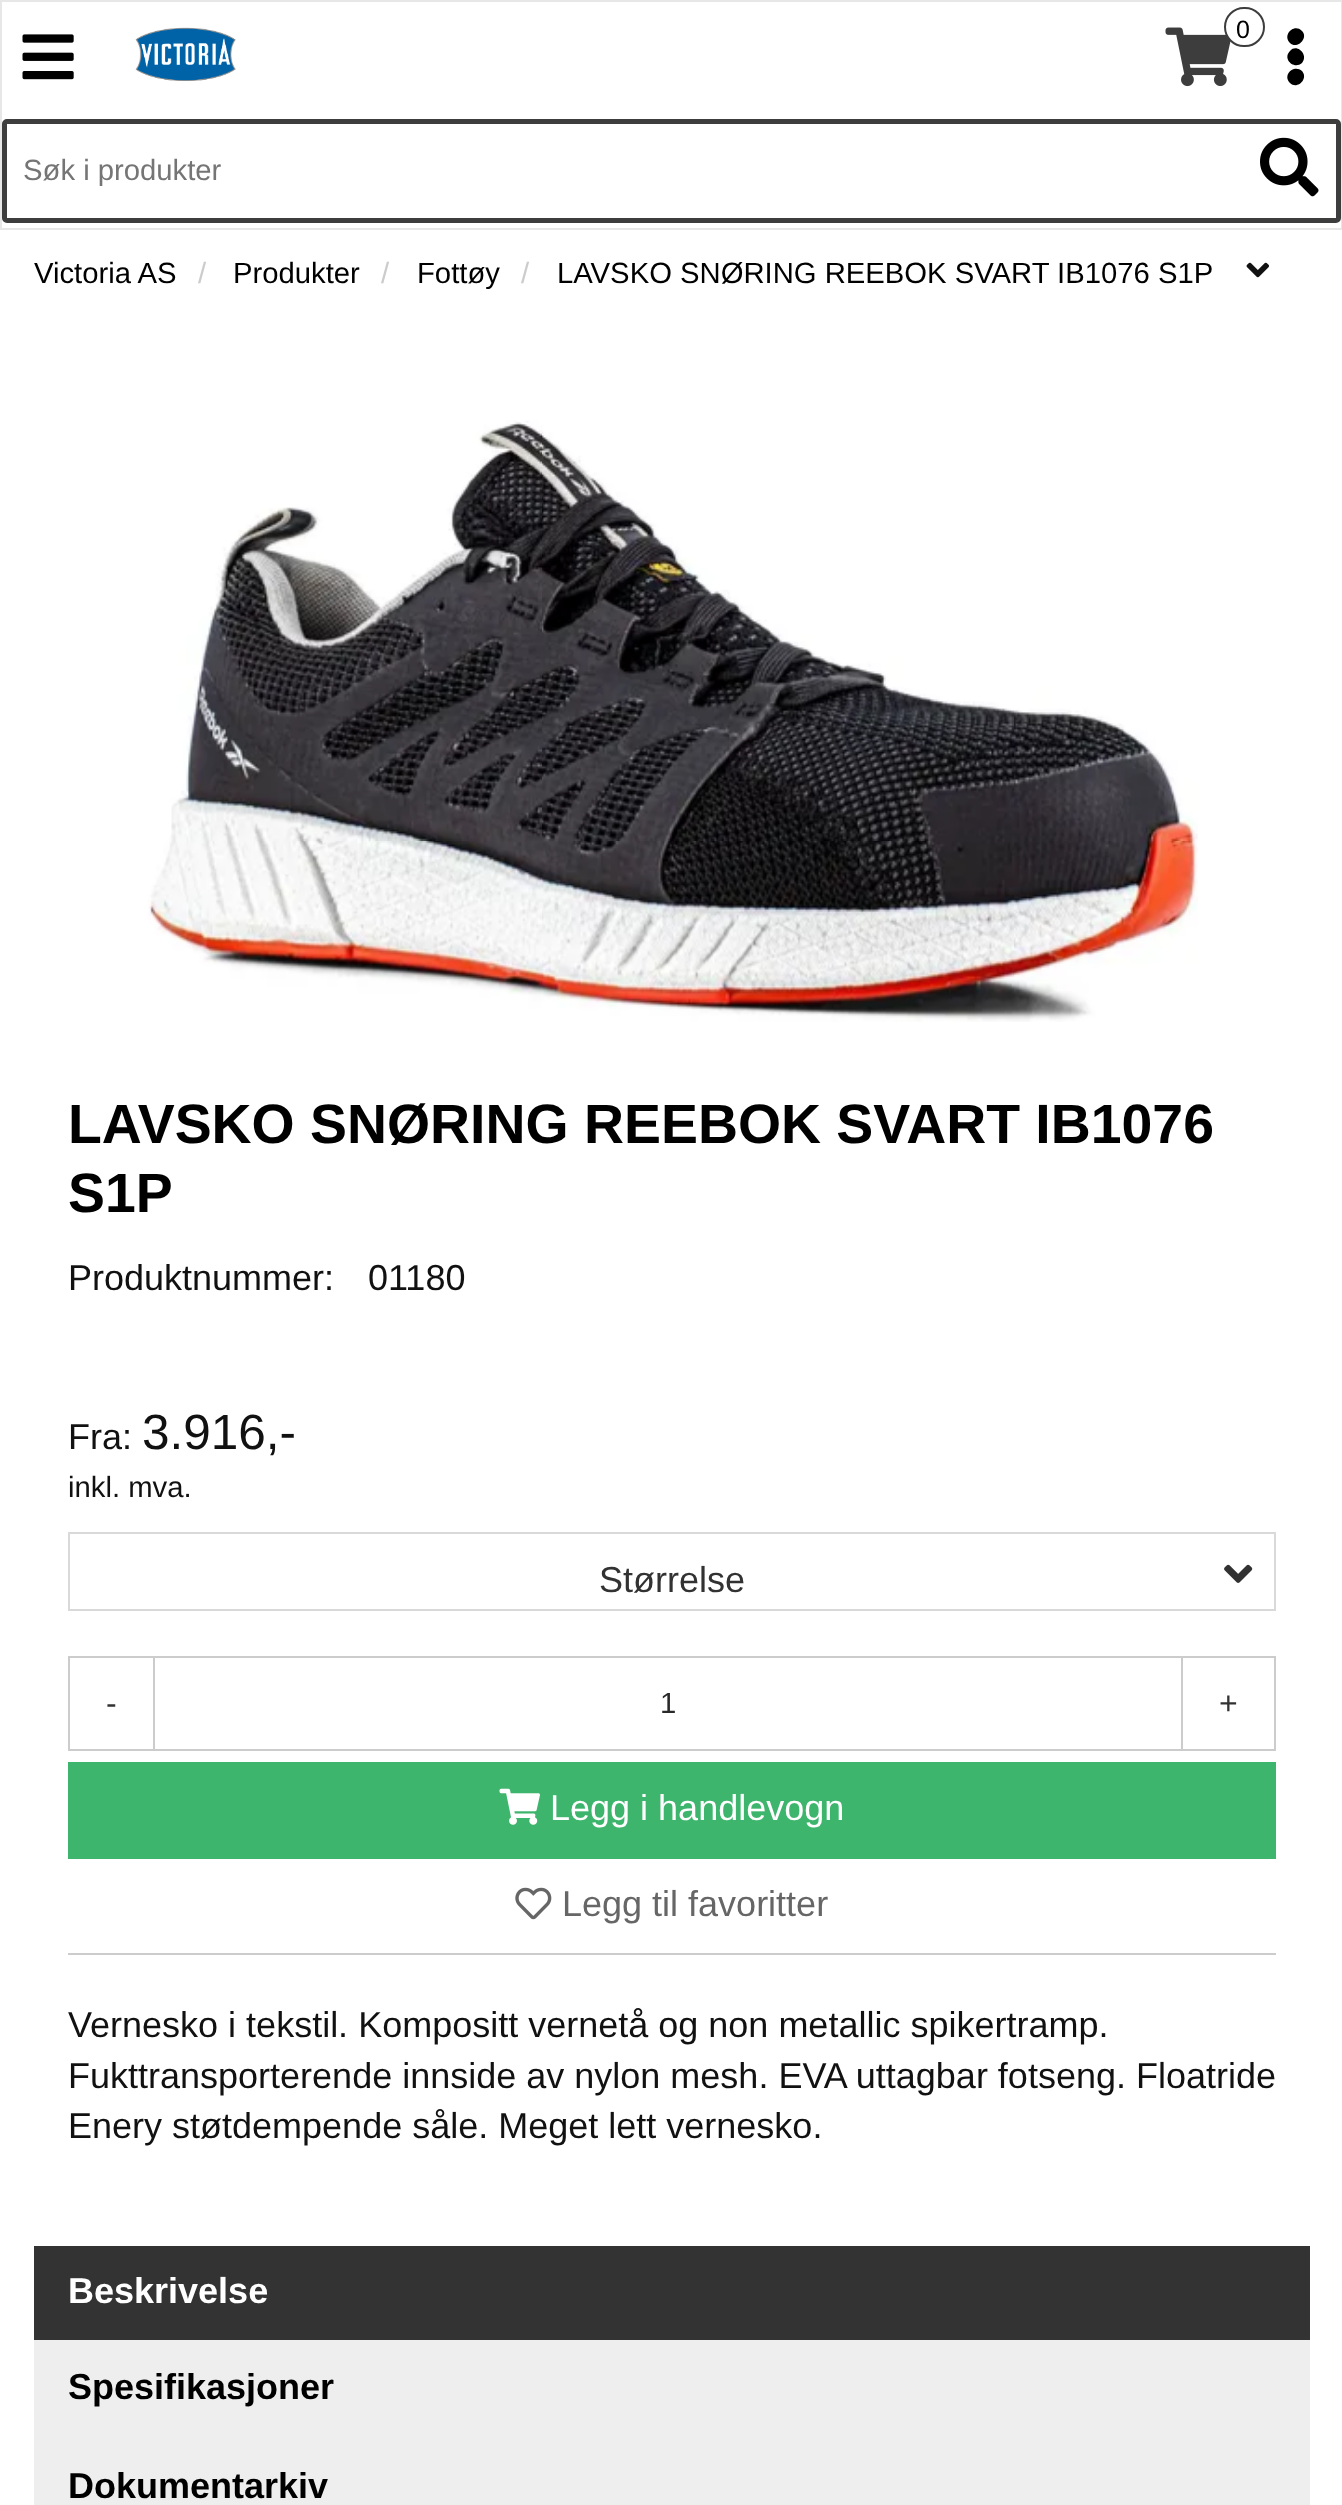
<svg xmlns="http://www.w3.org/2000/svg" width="1342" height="2505">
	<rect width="100%" height="100%" fill="#FFFFFF" />
	<rect x="1" y="1" width="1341" height="228" fill="none" stroke="#E7E7E7" stroke-width="2" />
	<image x="22" y="34" width="52" height="46" href="assets/img1.png" />
	<image x="135" y="27" width="101" height="54" href="assets/img2.png" />
	<image x="1165" y="27" width="66" height="60" href="assets/img3.png" />
	<rect x="1225" y="8" width="39" height="38" rx="19" fill="#FFFFFF" stroke="#3D3D3D" stroke-width="2" />
	<text x="1236" y="38" font-family="Liberation Sans" font-size="25" fill="#000000">0</text>
	<path d="M1290 51C1297 43 1309 55 1302 63C1294 70 1282 59 1290 51ZM1290 43C1282 35 1294 23 1302 31C1309 38 1297 50 1290 43ZM1290 83C1282 75 1294 64 1302 71C1309 79 1297 90 1290 83Z" fill="#000000" />
	<rect x="4.5" y="121.5" width="1334" height="99" rx="2.5" fill="none" stroke="#3D3D3D" stroke-width="5" />
	<text x="23" y="180" font-family="Liberation Sans" font-size="29.25" fill="#757575">Søk i produkter</text>
	<image x="1260" y="137" width="59" height="60" href="assets/img4.png" />
	<text x="34" y="283" font-family="Liberation Sans" font-size="29.25" fill="#000000">Victoria AS</text>
	<text x="198" y="283" font-family="Liberation Sans" font-size="29.25" fill="#CCCCCC">/</text>
	<text x="233" y="283" font-family="Liberation Sans" font-size="29.25" fill="#000000">Produkter</text>
	<text x="381" y="283" font-family="Liberation Sans" font-size="29.25" fill="#CCCCCC">/</text>
	<text x="417" y="283" font-family="Liberation Sans" font-size="29.25" fill="#000000">Fottøy</text>
	<text x="521" y="283" font-family="Liberation Sans" font-size="29.25" fill="#CCCCCC">/</text>
	<text x="557" y="283" font-family="Liberation Sans" font-size="29.25" fill="#000000">LAVSKO SNØRING REEBOK SVART IB1076 S1P</text>
	<image x="1246" y="262" width="23" height="16" href="assets/img5.png" />
	<image x="148" y="420" width="1050" height="602" href="assets/img6.png" />
	<g font-family="Liberation Sans" font-size="55.4" font-weight="700" fill="#000000">
		<text x="68" y="1143">LAVSKO SNØRING REEBOK SVART IB1076</text>
		<text x="68" y="1212">S1P</text>
	</g>
	<g font-family="Liberation Sans" font-size="36" fill="#111111">
		<text x="68" y="1290">Produktnummer:</text>
		<text x="368" y="1290">01180</text>
		<text x="68" y="1449">Fra:</text>
	</g>
	<text x="142" y="1449" font-family="Liberation Sans" font-size="49.5" fill="#111111">3.916,-</text>
	<text x="68" y="1497" font-family="Liberation Sans" font-size="29.25" fill="#111111">inkl. mva.</text>
	<rect x="69" y="1533" width="1206" height="77" fill="none" stroke="#D9D9D9" stroke-width="2" />
	<text x="599" y="1592" font-family="Liberation Sans" font-size="36" fill="#323232">Størrelse</text>
	<image x="1224" y="1564" width="29" height="19" href="assets/img7.png" />
	<rect x="69" y="1657" width="85" height="93" fill="none" stroke="#CCCCCC" stroke-width="2" />
	<text x="106" y="1714" font-family="Liberation Sans" font-size="32" fill="#323232">-</text>
	<rect x="154" y="1657" width="1029" height="93" fill="none" stroke="#CCCCCC" stroke-width="2" />
	<text x="660" y="1713" font-family="Liberation Sans" font-size="29.25" fill="#292929">1</text>
	<rect x="1183" y="1658" width="1" height="91" fill="#FFFFFF" />
	<rect x="1182" y="1657" width="93" height="93" fill="none" stroke="#CCCCCC" stroke-width="2" />
	<text x="1219" y="1714" font-family="Liberation Sans" font-size="32" fill="#323232">+</text>
	<rect x="68" y="1762" width="1208" height="97" fill="#3EB56D" />
	<image x="499" y="1788" width="41" height="37" href="assets/img8.png" />
	<text x="550" y="1820" font-family="Liberation Sans" font-size="36" fill="#FFFFFF">Legg i handlevogn</text>
	<rect x="68" y="1953" width="1208" height="2" fill="#CCCCCC" />
	<image x="515" y="1887" width="37" height="33" href="assets/img9.png" />
	<text x="562" y="1916" font-family="Liberation Sans" font-size="36" fill="#666666">Legg til favoritter</text>
	<g font-family="Liberation Sans" font-size="36" fill="#111111">
		<text x="68" y="2037">Vernesko i tekstil. Kompositt vernetå og non metallic spikertramp.</text>
		<text x="68" y="2088">Fukttransporterende innside av nylon mesh. EVA uttagbar fotseng. Floatride</text>
		<text x="68" y="2138">Enery støtdempende såle. Meget lett vernesko.</text>
	</g>
	<rect x="34" y="2246" width="1276" height="94" fill="#333333" />
	<text x="68" y="2303" font-family="Liberation Sans" font-size="36" font-weight="700" fill="#FFFFFF">Beskrivelse</text>
	<rect x="34" y="2340" width="1276" height="165" fill="#EEEEEE" />
	<g font-family="Liberation Sans" font-size="36" font-weight="700" fill="#000000">
		<text x="68" y="2399">Spesifikasjoner</text>
		<text x="68" y="2498">Dokumentarkiv</text>
	</g>
</svg>
